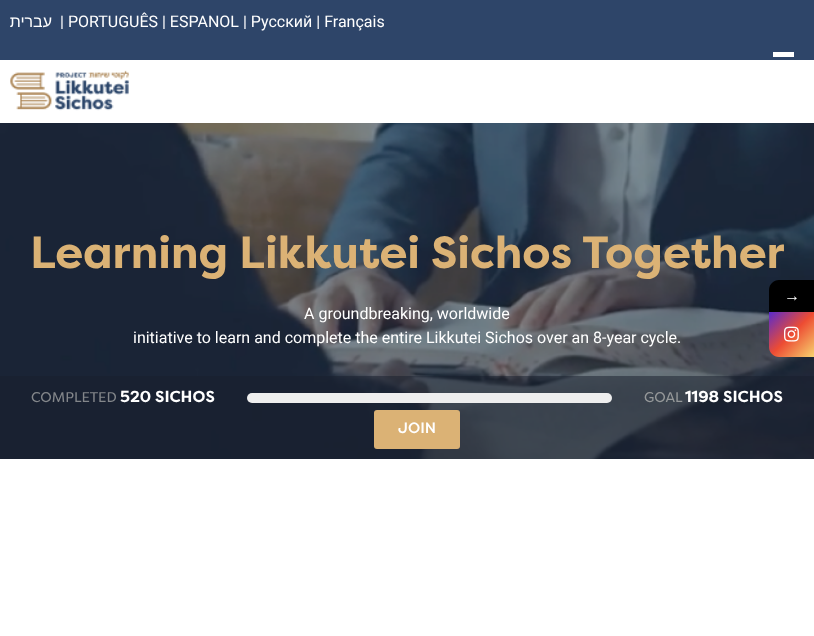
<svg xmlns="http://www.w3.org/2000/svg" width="814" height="636">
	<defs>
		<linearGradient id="g1" gradientUnits="userSpaceOnUse" x1="769" y1="312" x2="814" y2="357"><stop offset="0" stop-color="#582BCD" /><stop offset="0.5" stop-color="#ED4C33" /><stop offset="1" stop-color="#F7D36F" /></linearGradient>
	</defs>
	<rect width="100%" height="100%" fill="#FFFFFF" />
	<rect x="0" y="0" width="814" height="60" fill="#2E4569" />
	<text x="52" y="27" font-family="Liberation Sans" font-size="16" direction="rtl" fill="#FFFFFF">עברית</text>
	<text x="60" y="27" font-family="Roboto" font-size="16" fill="#FFFFFF">| PORTUGUÊS | ESPANOL | Русский | Français</text>
	<image x="10" y="70" width="120" height="41" href="assets/img1.png" />
	<image x="0" y="123" width="814" height="336" href="assets/img2.png" />
	<text x="30" y="268" font-family="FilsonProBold" font-size="45" font-weight="700" fill="#DBB275">Learning Likkutei Sichos Together</text>
	<g font-family="Roboto" font-size="16" fill="#FFFFFF">
		<text x="304" y="319">A groundbreaking, worldwide</text>
		<text x="133" y="343">initiative to learn and complete the entire Likkutei Sichos over an 8-year cycle.</text>
	</g>
	<rect x="0" y="376" width="814" height="83" fill="#171E2B" fill-opacity="0.5" />
	<text x="31" y="402" font-family="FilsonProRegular" font-size="14" fill="#83868A">COMPLETED</text>
	<text x="120" y="402" font-family="FilsonProBold" font-size="16" font-weight="700" fill="#FFFFFF">520 SICHOS</text>
	<rect x="247" y="393" width="365" height="10" rx="5" fill="#EEEEEE" />
	<text x="644" y="402" font-family="FilsonProRegular" font-size="14" fill="#959899">GOAL</text>
	<text x="685" y="402" font-family="FilsonProBold" font-size="16" font-weight="700" fill="#FFFFFF">1198 SICHOS</text>
	<rect x="374" y="410" width="86" height="39" rx="3" fill="#DBB275" />
	<text x="398" y="433" font-family="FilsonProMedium" font-size="15" font-weight="500" fill="#FFFFFF">JOIN</text>
	<rect x="773" y="52" width="21" height="5" fill="#FFFFFF" />
	<path d="M779 280H814V312H769V290C769 284.5 773.5 280 779 280Z" fill="#000000" />
	<text x="784" y="301" font-family="Liberation Serif" font-size="16" fill="#FFFFFF">→</text>
	<path d="M769 312H814V357H779C773.5 357 769 352.5 769 347Z" fill="url(#g1)" />
	<image x="784" y="326" width="15" height="16" href="assets/img3.png" />
</svg>
